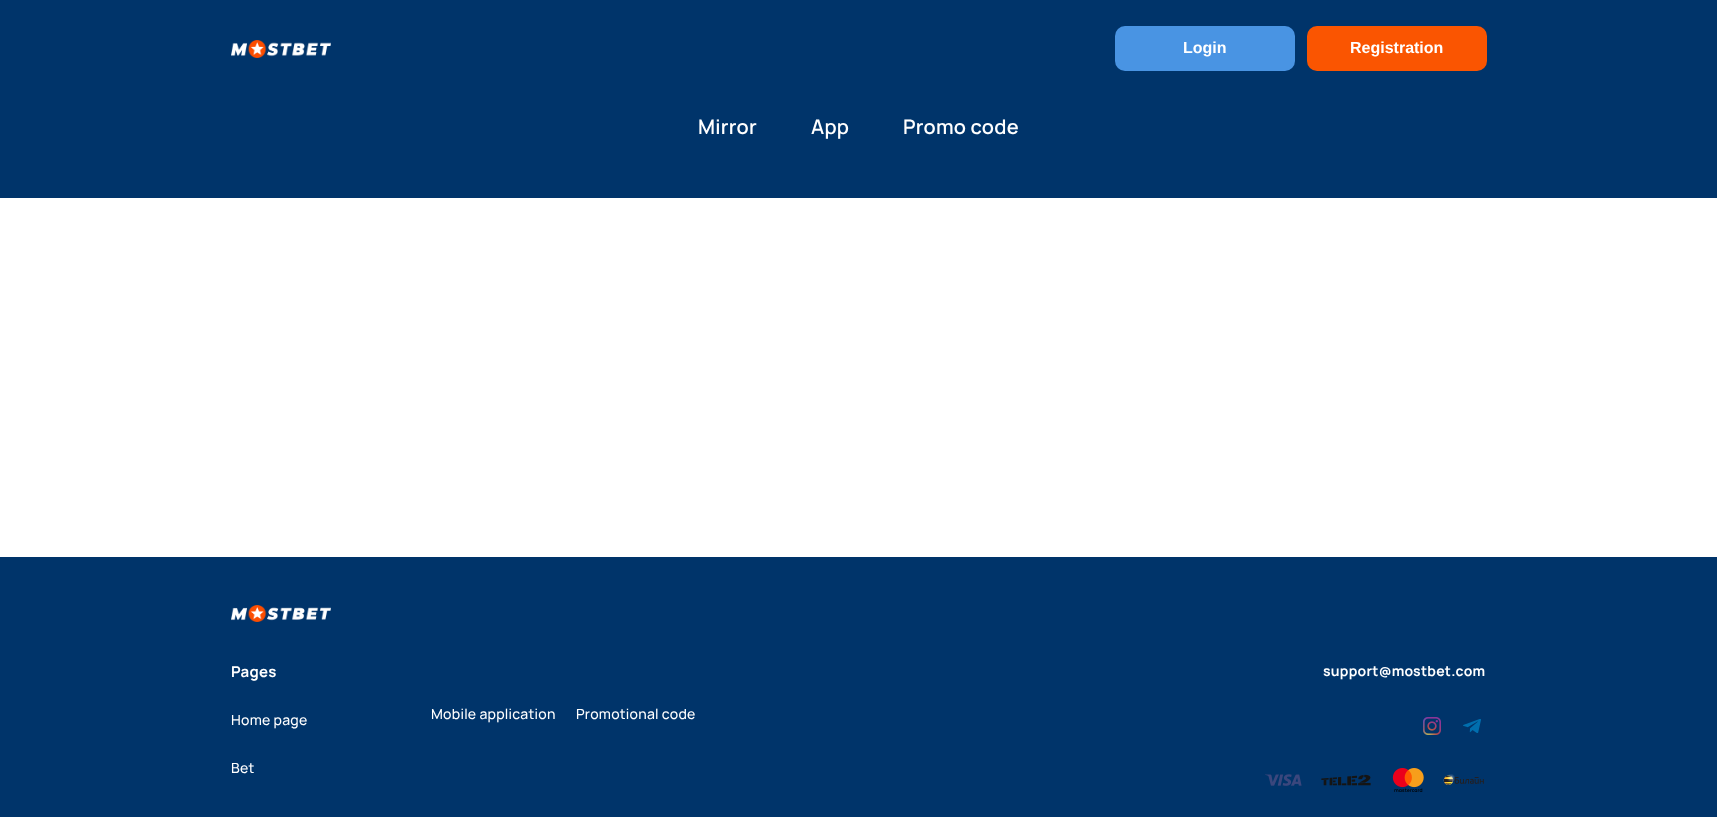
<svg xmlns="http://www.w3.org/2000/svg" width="1717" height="817">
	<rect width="100%" height="100%" fill="#FFFFFF" />
	<rect x="0" y="0" width="1717" height="198" fill="#00346A" />
	<image x="231" y="40" width="100" height="18" href="assets/img1.png" />
	<rect x="1115" y="26" width="180" height="45" rx="10" fill="#4994E3" />
	<text x="1183" y="53" font-family="Liberation Sans" font-size="16" font-weight="700" fill="#FFFFFF">Login</text>
	<rect x="1307" y="26" width="180" height="45" rx="10" fill="#FA5501" />
	<text x="1350" y="53" font-family="Liberation Sans" font-size="16" font-weight="700" fill="#FFFFFF">Registration</text>
	<g font-family="Manrope" font-size="20" font-weight="600" letter-spacing="0.25" fill="#FFFFFF">
		<text x="698" y="134">Mirror</text>
		<text x="811" y="134">App</text>
		<text x="903" y="134">Promo code</text>
	</g>
	<rect x="0" y="557" width="1717" height="260" fill="#00346A" />
	<image x="231" y="605" width="100" height="17" href="assets/img2.png" />
	<text x="231" y="677" font-family="Manrope" font-size="15" font-weight="700" letter-spacing="0.25" fill="#FFFFFF">Pages</text>
	<g font-family="Manrope" font-size="14" font-weight="500" letter-spacing="0.25" fill="#FFFFFF">
		<text x="231" y="725">Home page</text>
		<text x="231" y="773">Bet</text>
		<text x="431" y="719">Mobile application</text>
		<text x="576" y="719">Promotional code</text>
	</g>
	<text x="1323" y="676" font-family="Manrope" font-size="14" font-weight="700" letter-spacing="0.25" fill="#FFFFFF">support@mostbet.com</text>
	<image x="1423" y="717" width="18" height="18" href="assets/img3.png" />
	<image x="1463" y="719" width="18" height="14" href="assets/img4.png" />
	<image x="1265" y="774" width="37" height="12" href="assets/img5.png" />
	<image x="1321" y="774" width="50" height="12" href="assets/img6.png" />
	<image x="1392" y="768" width="32" height="24" href="assets/img7.png" />
	<image x="1443" y="774" width="41" height="11" href="assets/img8.png" />
</svg>
